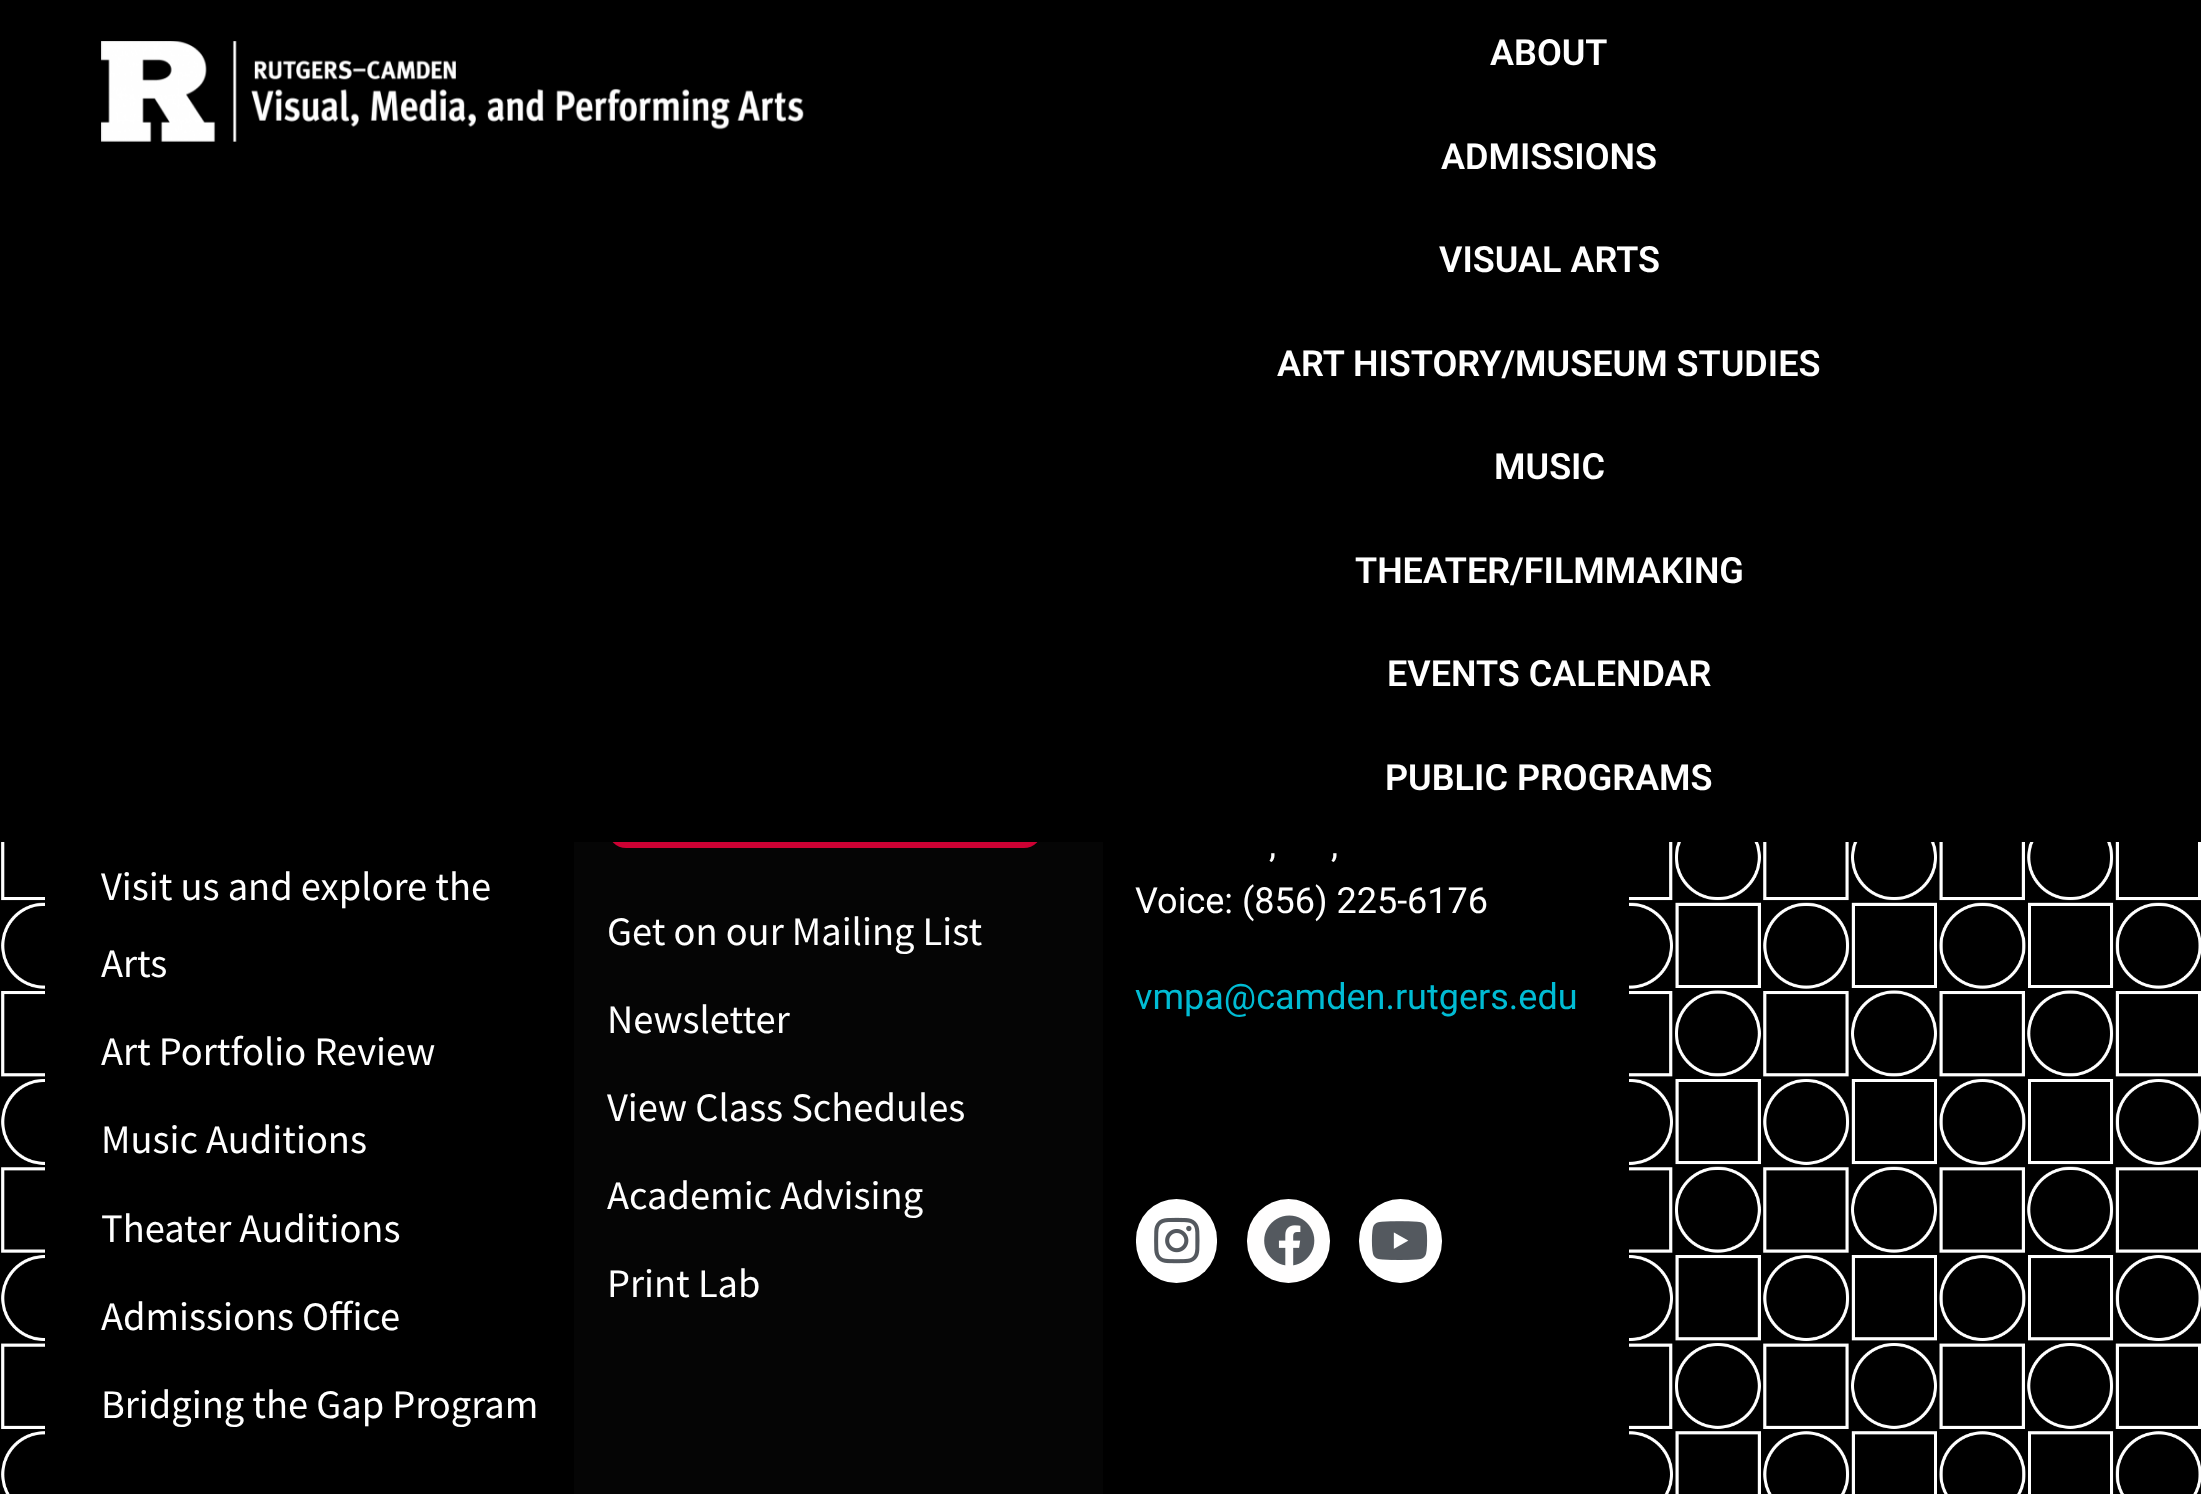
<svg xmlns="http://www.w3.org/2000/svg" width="2201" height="1494">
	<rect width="100%" height="100%" fill="#000000" />
	<image x="101" y="41" width="703" height="101" href="assets/img1.png" />
	<g font-family="Roboto" font-size="36" font-weight="600" fill="#FFFFFF">
		<text x="1490" y="65">ABOUT</text>
		<text x="1441" y="169">ADMISSIONS</text>
		<text x="1439" y="272">VISUAL ARTS</text>
		<text x="1277" y="376">ART HISTORY/MUSEUM STUDIES</text>
		<text x="1494" y="479">MUSIC</text>
		<text x="1355" y="583">THEATER/FILMMAKING</text>
		<text x="1387" y="686">EVENTS CALENDAR</text>
		<text x="1385" y="790">PUBLIC PROGRAMS</text>
	</g>
	<image x="1" y="842" width="2200" height="652" href="assets/img2.png" />
	<rect x="574" y="842" width="529" height="652" fill="#050505" />
	<rect x="608" y="761" width="434" height="87" rx="18" fill="#CC0133" />
	<rect x="608" y="761" width="434" height="81" fill="#000000" />
	<rect x="45" y="842" width="529" height="652" fill="#000000" />
	<g font-family="Source Sans Pro" font-size="40.5" fill="#FFFFFF">
		<text x="101" y="900">Visit us and explore the</text>
		<text x="101" y="977">Arts</text>
		<text x="101" y="1065">Art Portfolio Review</text>
		<text x="101" y="1153">Music Auditions</text>
		<text x="101" y="1242">Theater Auditions</text>
		<text x="101" y="1330">Admissions Office</text>
		<text x="101" y="1418">Bridging the Gap Program</text>
		<text x="607" y="945">Get on our Mailing List</text>
		<text x="607" y="1033">Newsletter</text>
		<text x="607" y="1121">View Class Schedules</text>
		<text x="607" y="1209">Academic Advising</text>
		<text x="607" y="1297">Print Lab</text>
	</g>
	<rect x="1103" y="842" width="526" height="652" fill="#000000" />
	<g font-family="Roboto" font-size="36" fill="#FFFFFF">
		<text x="1269" y="857">,</text>
		<text x="1331" y="857">,</text>
		<text x="1135" y="913">Voice: (856) 225-6176</text>
	</g>
	<text x="1135" y="1009" font-family="Roboto" font-size="36" fill="#00BCD4">vmpa@camden.rutgers.edu</text>
	<rect x="1136" y="1199" width="81" height="84" rx="40.5" fill="#FFFFFF" />
	<image x="1154" y="1217" width="46" height="47" href="assets/img3.png" />
	<rect x="1247" y="1199" width="83" height="84" rx="41.5" fill="#FFFEFE" />
	<image x="1264" y="1215" width="51" height="51" href="assets/img4.png" />
	<rect x="1359" y="1199" width="83" height="84" rx="41.5" fill="#FFFFFF" />
	<image x="1371" y="1221" width="57" height="39" href="assets/img5.png" />
</svg>
